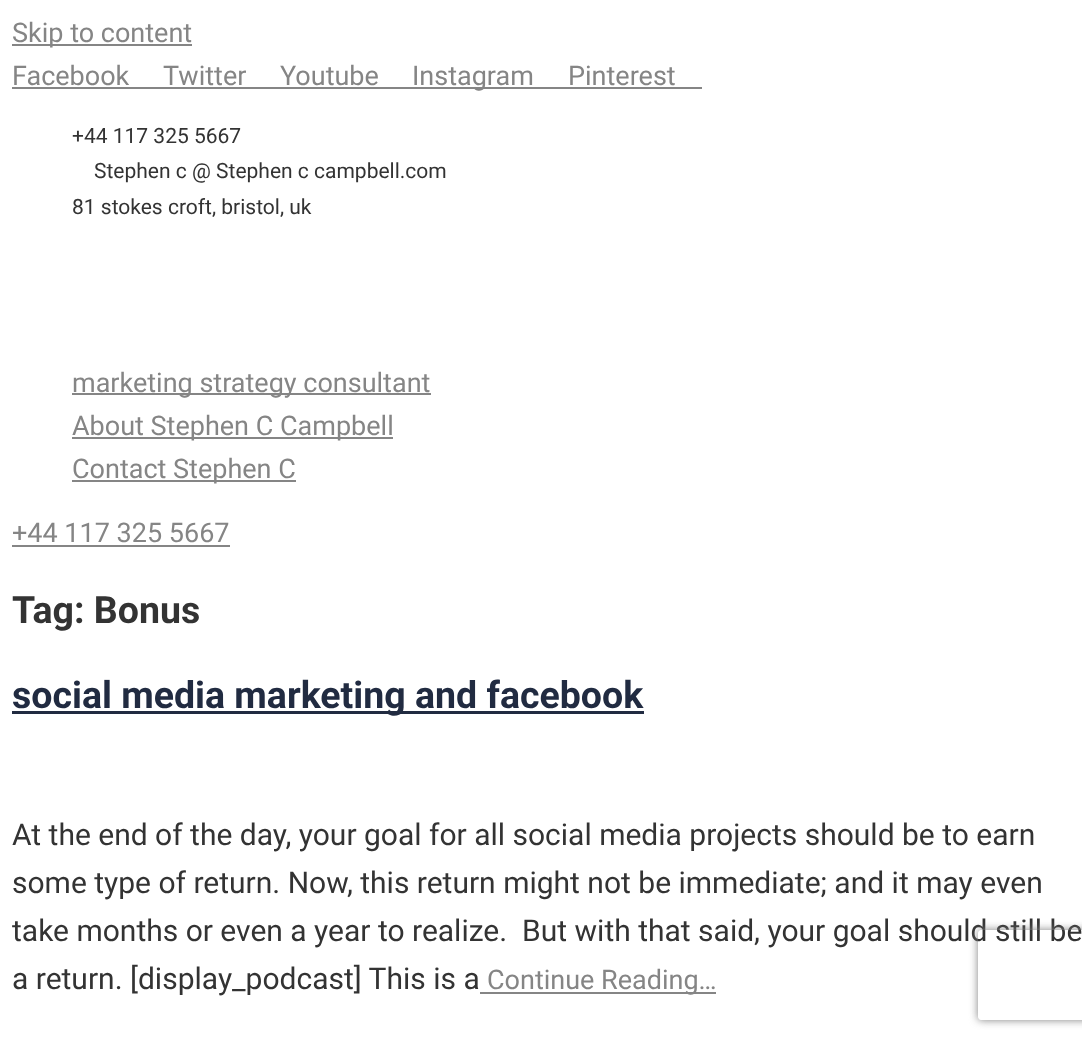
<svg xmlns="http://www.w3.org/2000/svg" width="1082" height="1040">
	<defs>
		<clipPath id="clip1"><path d="M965 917H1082V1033H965ZM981 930H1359C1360.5 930 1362 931.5 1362 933V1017C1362 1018.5 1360.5 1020 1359 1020H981C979.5 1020 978 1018.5 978 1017V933C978 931.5 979.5 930 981 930Z" clip-rule="evenodd" /></clipPath>
	</defs>
	<rect width="100%" height="100%" fill="#FFFFFF" />
	<rect x="12" y="44" width="180" height="2" fill="#858585" />
	<g font-family="Roboto" font-size="27" fill="#858585">
		<text x="12" y="42">Skip to content</text>
		<text x="12" y="85">Facebook</text>
	</g>
	<rect x="12" y="87" width="690" height="2" fill="#858585" />
	<g font-family="Roboto" font-size="27" fill="#858585">
		<text x="163" y="85">Twitter</text>
		<text x="280" y="85">Youtube</text>
		<text x="412" y="85">Instagram</text>
		<text x="568" y="85">Pinterest</text>
	</g>
	<g font-family="Roboto" font-size="21" fill="#333333">
		<text x="72" y="143">+44 117 325 5667</text>
		<text x="94" y="178">Stephen c @ Stephen c campbell.com</text>
		<text x="72" y="214">81 stokes croft, bristol, uk</text>
	</g>
	<rect x="72" y="393" width="359" height="2" fill="#858585" />
	<text x="72" y="392" font-family="Roboto" font-size="27" fill="#858585">marketing strategy consultant</text>
	<rect x="72" y="437" width="321" height="2" fill="#858585" />
	<text x="72" y="435" font-family="Roboto" font-size="27" fill="#858585">About Stephen C Campbell</text>
	<rect x="72" y="480" width="224" height="2" fill="#858585" />
	<g font-family="Roboto" font-size="27" fill="#858585">
		<text x="72" y="478">Contact Stephen C</text>
		<text x="12" y="542">+44 117 325 5667</text>
	</g>
	<rect x="12" y="545" width="218" height="2" fill="#858585" />
	<text x="12" y="623" font-family="Roboto" font-size="37.5" font-weight="700" fill="#333333">Tag: Bonus</text>
	<rect x="12" y="711" width="632" height="3" fill="#212B41" />
	<text x="12" y="708" font-family="Roboto" font-size="37.5" font-weight="700" fill="#212B41">social media marketing and facebook</text>
	<g font-family="Roboto" font-size="30" fill="#333333">
		<text x="12" y="845">At the end of the day, your goal for all social media projects should be to earn</text>
		<text x="12" y="893">some type of return. Now, this return might not be immediate; and it may even</text>
		<text x="12" y="941" xml:space="preserve">take months or even a year to realize.  But with that said, your goal should still be</text>
		<text x="12" y="989">a return. [display_podcast] This is a</text>
	</g>
	<rect x="480" y="992" width="236" height="2" fill="#858585" />
	<text x="487" y="989" font-family="Roboto" font-size="27" fill="#858585">Continue Reading…</text>
	<g clip-path="url(#clip1)">
		<rect x="978" y="930" width="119" height="90" rx="3" fill="#808080" filter="blur(4px)" />
	</g>
</svg>
